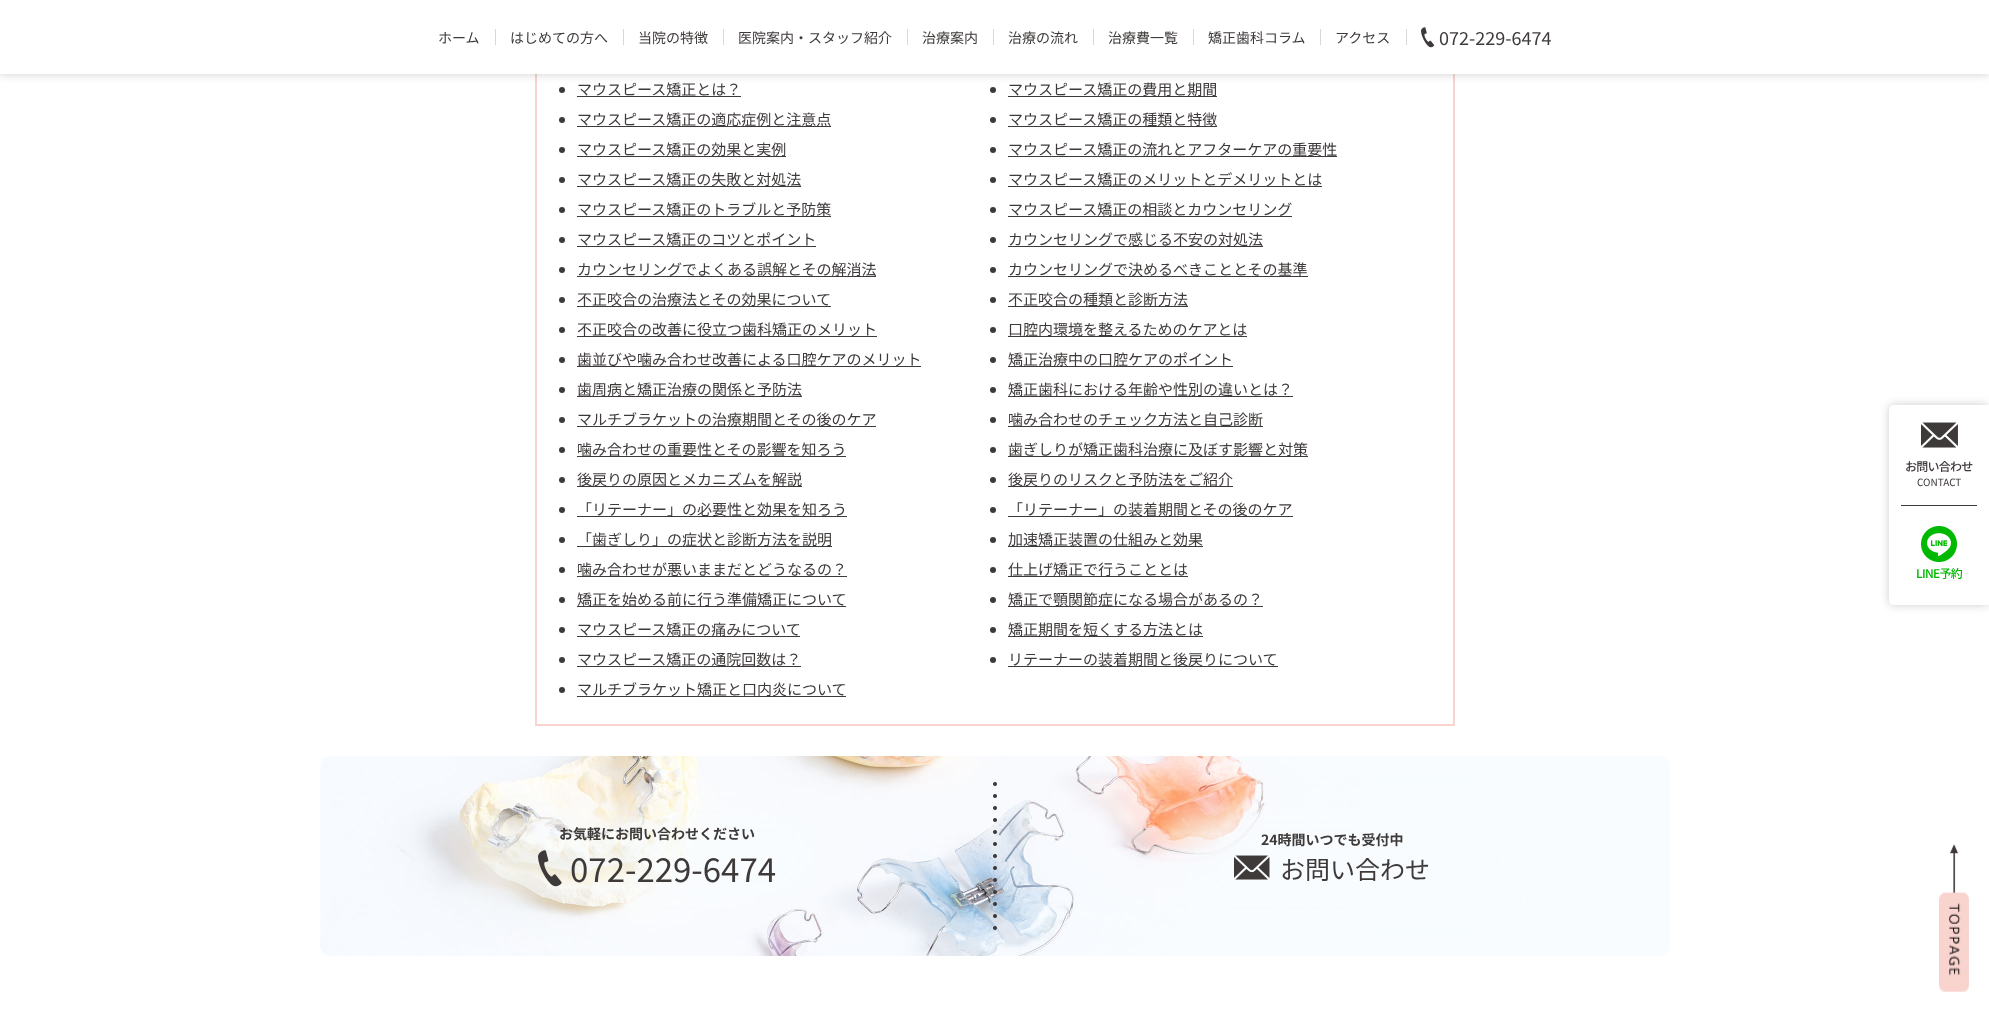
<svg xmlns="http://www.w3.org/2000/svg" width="1989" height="1012">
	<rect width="100%" height="100%" fill="#FFFFFF" />
	<rect x="536" y="-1" width="918" height="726" fill="none" stroke="#F9D3CD" stroke-width="2" />
	<circle cx="562" cy="90" r="3" fill="#3E3A39" />
	<circle cx="993" cy="90" r="3" fill="#3E3A39" />
	<rect x="0" y="0" width="1989" height="74" fill="#000000" fill-opacity="0.2" filter="blur(5px)" />
	<rect x="0" y="0" width="1989" height="74" fill="#FFFFFF" />
	<text x="438" y="43" font-family="Noto Sans JP" font-size="14" fill="#3E3A39">ホーム</text>
	<rect x="495" y="29" width="1" height="16" fill="#D8D8D8" />
	<text x="510" y="43" font-family="Noto Sans JP" font-size="14" fill="#3E3A39">はじめての方へ</text>
	<rect x="623" y="29" width="1" height="16" fill="#D8D8D8" />
	<text x="638" y="43" font-family="Noto Sans JP" font-size="14" fill="#3E3A39">当院の特徴</text>
	<rect x="723" y="29" width="1" height="16" fill="#D8D8D8" />
	<text x="738" y="43" font-family="Noto Sans JP" font-size="14" fill="#3E3A39">医院案内・スタッフ紹介</text>
	<rect x="907" y="29" width="1" height="16" fill="#D8D8D8" />
	<text x="922" y="43" font-family="Noto Sans JP" font-size="14" fill="#3E3A39">治療案内</text>
	<rect x="993" y="29" width="1" height="16" fill="#D8D8D8" />
	<text x="1008" y="43" font-family="Noto Sans JP" font-size="14" fill="#3E3A39">治療の流れ</text>
	<rect x="1093" y="29" width="1" height="16" fill="#D8D8D8" />
	<text x="1108" y="43" font-family="Noto Sans JP" font-size="14" fill="#3E3A39">治療費一覧</text>
	<rect x="1193" y="29" width="1" height="16" fill="#D8D8D8" />
	<text x="1208" y="43" font-family="Noto Sans JP" font-size="14" fill="#3E3A39">矯正歯科コラム</text>
	<rect x="1320" y="29" width="1" height="16" fill="#D8D8D8" />
	<text x="1335" y="43" font-family="Noto Sans JP" font-size="14" fill="#3E3A39">アクセス</text>
	<rect x="1406" y="29" width="1" height="16" fill="#D8D8D8" />
	<image x="1421" y="27" width="14" height="21" href="assets/img1.png" />
	<text x="1439" y="45" font-family="Noto Sans JP" font-size="18" fill="#3E3A39">072-229-6474</text>
	<rect x="577" y="96" width="164" height="1" fill="#3E3A39" />
	<text x="577" y="95" font-family="Noto Sans JP" font-size="15" fill="#3E3A39">マウスピース矯正とは？</text>
	<circle cx="562" cy="120" r="3" fill="#3E3A39" />
	<rect x="577" y="126" width="254" height="1" fill="#3E3A39" />
	<text x="577" y="125" font-family="Noto Sans JP" font-size="15" fill="#3E3A39">マウスピース矯正の適応症例と注意点</text>
	<circle cx="562" cy="150" r="3" fill="#3E3A39" />
	<rect x="577" y="156" width="209" height="1" fill="#3E3A39" />
	<text x="577" y="155" font-family="Noto Sans JP" font-size="15" fill="#3E3A39">マウスピース矯正の効果と実例</text>
	<circle cx="562" cy="180" r="3" fill="#3E3A39" />
	<rect x="577" y="186" width="224" height="1" fill="#3E3A39" />
	<text x="577" y="185" font-family="Noto Sans JP" font-size="15" fill="#3E3A39">マウスピース矯正の失敗と対処法</text>
	<circle cx="562" cy="210" r="3" fill="#3E3A39" />
	<rect x="577" y="216" width="254" height="1" fill="#3E3A39" />
	<text x="577" y="215" font-family="Noto Sans JP" font-size="15" fill="#3E3A39">マウスピース矯正のトラブルと予防策</text>
	<circle cx="562" cy="240" r="3" fill="#3E3A39" />
	<rect x="577" y="246" width="239" height="1" fill="#3E3A39" />
	<text x="577" y="245" font-family="Noto Sans JP" font-size="15" fill="#3E3A39">マウスピース矯正のコツとポイント</text>
	<circle cx="562" cy="270" r="3" fill="#3E3A39" />
	<rect x="577" y="276" width="299" height="1" fill="#3E3A39" />
	<text x="577" y="275" font-family="Noto Sans JP" font-size="15" fill="#3E3A39">カウンセリングでよくある誤解とその解消法</text>
	<circle cx="562" cy="300" r="3" fill="#3E3A39" />
	<rect x="577" y="306" width="254" height="1" fill="#3E3A39" />
	<text x="577" y="305" font-family="Noto Sans JP" font-size="15" fill="#3E3A39">不正咬合の治療法とその効果について</text>
	<circle cx="562" cy="330" r="3" fill="#3E3A39" />
	<rect x="577" y="336" width="300" height="1" fill="#3E3A39" />
	<text x="577" y="335" font-family="Noto Sans JP" font-size="15" fill="#3E3A39">不正咬合の改善に役立つ歯科矯正のメリット</text>
	<circle cx="562" cy="360" r="3" fill="#3E3A39" />
	<rect x="577" y="366" width="344" height="1" fill="#3E3A39" />
	<text x="577" y="365" font-family="Noto Sans JP" font-size="15" fill="#3E3A39">歯並びや噛み合わせ改善による口腔ケアのメリット</text>
	<circle cx="562" cy="390" r="3" fill="#3E3A39" />
	<rect x="577" y="396" width="225" height="1" fill="#3E3A39" />
	<text x="577" y="395" font-family="Noto Sans JP" font-size="15" fill="#3E3A39">歯周病と矯正治療の関係と予防法</text>
	<circle cx="562" cy="420" r="3" fill="#3E3A39" />
	<rect x="577" y="426" width="299" height="1" fill="#3E3A39" />
	<text x="577" y="425" font-family="Noto Sans JP" font-size="15" fill="#3E3A39">マルチブラケットの治療期間とその後のケア</text>
	<circle cx="562" cy="450" r="3" fill="#3E3A39" />
	<rect x="577" y="456" width="269" height="1" fill="#3E3A39" />
	<text x="577" y="455" font-family="Noto Sans JP" font-size="15" fill="#3E3A39">噛み合わせの重要性とその影響を知ろう</text>
	<circle cx="562" cy="480" r="3" fill="#3E3A39" />
	<rect x="577" y="486" width="225" height="1" fill="#3E3A39" />
	<text x="577" y="485" font-family="Noto Sans JP" font-size="15" fill="#3E3A39">後戻りの原因とメカニズムを解説</text>
	<circle cx="562" cy="510" r="3" fill="#3E3A39" />
	<rect x="577" y="516" width="270" height="1" fill="#3E3A39" />
	<text x="577" y="515" font-family="Noto Sans JP" font-size="15" fill="#3E3A39">「リテーナー」の必要性と効果を知ろう</text>
	<circle cx="562" cy="540" r="3" fill="#3E3A39" />
	<rect x="577" y="546" width="255" height="1" fill="#3E3A39" />
	<text x="577" y="545" font-family="Noto Sans JP" font-size="15" fill="#3E3A39">「歯ぎしり」の症状と診断方法を説明</text>
	<circle cx="562" cy="570" r="3" fill="#3E3A39" />
	<rect x="577" y="576" width="270" height="1" fill="#3E3A39" />
	<text x="577" y="575" font-family="Noto Sans JP" font-size="15" fill="#3E3A39">噛み合わせが悪いままだとどうなるの？</text>
	<circle cx="562" cy="600" r="3" fill="#3E3A39" />
	<rect x="577" y="606" width="269" height="1" fill="#3E3A39" />
	<text x="577" y="605" font-family="Noto Sans JP" font-size="15" fill="#3E3A39">矯正を始める前に行う準備矯正について</text>
	<circle cx="562" cy="630" r="3" fill="#3E3A39" />
	<rect x="577" y="636" width="223" height="1" fill="#3E3A39" />
	<text x="577" y="635" font-family="Noto Sans JP" font-size="15" fill="#3E3A39">マウスピース矯正の痛みについて</text>
	<circle cx="562" cy="660" r="3" fill="#3E3A39" />
	<rect x="577" y="666" width="224" height="1" fill="#3E3A39" />
	<text x="577" y="665" font-family="Noto Sans JP" font-size="15" fill="#3E3A39">マウスピース矯正の通院回数は？</text>
	<circle cx="562" cy="690" r="3" fill="#3E3A39" />
	<rect x="577" y="696" width="269" height="1" fill="#3E3A39" />
	<text x="577" y="695" font-family="Noto Sans JP" font-size="15" fill="#3E3A39">マルチブラケット矯正と口内炎について</text>
	<rect x="1008" y="96" width="209" height="1" fill="#3E3A39" />
	<text x="1008" y="95" font-family="Noto Sans JP" font-size="15" fill="#3E3A39">マウスピース矯正の費用と期間</text>
	<circle cx="993" cy="120" r="3" fill="#3E3A39" />
	<rect x="1008" y="126" width="209" height="1" fill="#3E3A39" />
	<text x="1008" y="125" font-family="Noto Sans JP" font-size="15" fill="#3E3A39">マウスピース矯正の種類と特徴</text>
	<circle cx="993" cy="150" r="3" fill="#3E3A39" />
	<rect x="1008" y="156" width="329" height="1" fill="#3E3A39" />
	<text x="1008" y="155" font-family="Noto Sans JP" font-size="15" fill="#3E3A39">マウスピース矯正の流れとアフターケアの重要性</text>
	<circle cx="993" cy="180" r="3" fill="#3E3A39" />
	<rect x="1008" y="186" width="314" height="1" fill="#3E3A39" />
	<text x="1008" y="185" font-family="Noto Sans JP" font-size="15" fill="#3E3A39">マウスピース矯正のメリットとデメリットとは</text>
	<circle cx="993" cy="210" r="3" fill="#3E3A39" />
	<rect x="1008" y="216" width="284" height="1" fill="#3E3A39" />
	<text x="1008" y="215" font-family="Noto Sans JP" font-size="15" fill="#3E3A39">マウスピース矯正の相談とカウンセリング</text>
	<circle cx="993" cy="240" r="3" fill="#3E3A39" />
	<rect x="1008" y="246" width="255" height="1" fill="#3E3A39" />
	<text x="1008" y="245" font-family="Noto Sans JP" font-size="15" fill="#3E3A39">カウンセリングで感じる不安の対処法</text>
	<circle cx="993" cy="270" r="3" fill="#3E3A39" />
	<rect x="1008" y="276" width="300" height="1" fill="#3E3A39" />
	<text x="1008" y="275" font-family="Noto Sans JP" font-size="15" fill="#3E3A39">カウンセリングで決めるべきこととその基準</text>
	<circle cx="993" cy="300" r="3" fill="#3E3A39" />
	<rect x="1008" y="306" width="180" height="1" fill="#3E3A39" />
	<text x="1008" y="305" font-family="Noto Sans JP" font-size="15" fill="#3E3A39">不正咬合の種類と診断方法</text>
	<circle cx="993" cy="330" r="3" fill="#3E3A39" />
	<rect x="1008" y="336" width="239" height="1" fill="#3E3A39" />
	<text x="1008" y="335" font-family="Noto Sans JP" font-size="15" fill="#3E3A39">口腔内環境を整えるためのケアとは</text>
	<circle cx="993" cy="360" r="3" fill="#3E3A39" />
	<rect x="1008" y="366" width="225" height="1" fill="#3E3A39" />
	<text x="1008" y="365" font-family="Noto Sans JP" font-size="15" fill="#3E3A39">矯正治療中の口腔ケアのポイント</text>
	<circle cx="993" cy="390" r="3" fill="#3E3A39" />
	<rect x="1008" y="396" width="285" height="1" fill="#3E3A39" />
	<text x="1008" y="395" font-family="Noto Sans JP" font-size="15" fill="#3E3A39">矯正歯科における年齢や性別の違いとは？</text>
	<circle cx="993" cy="420" r="3" fill="#3E3A39" />
	<rect x="1008" y="426" width="255" height="1" fill="#3E3A39" />
	<text x="1008" y="425" font-family="Noto Sans JP" font-size="15" fill="#3E3A39">噛み合わせのチェック方法と自己診断</text>
	<circle cx="993" cy="450" r="3" fill="#3E3A39" />
	<rect x="1008" y="456" width="300" height="1" fill="#3E3A39" />
	<text x="1008" y="455" font-family="Noto Sans JP" font-size="15" fill="#3E3A39">歯ぎしりが矯正歯科治療に及ぼす影響と対策</text>
	<circle cx="993" cy="480" r="3" fill="#3E3A39" />
	<rect x="1008" y="486" width="225" height="1" fill="#3E3A39" />
	<text x="1008" y="485" font-family="Noto Sans JP" font-size="15" fill="#3E3A39">後戻りのリスクと予防法をご紹介</text>
	<circle cx="993" cy="510" r="3" fill="#3E3A39" />
	<rect x="1008" y="516" width="285" height="1" fill="#3E3A39" />
	<text x="1008" y="515" font-family="Noto Sans JP" font-size="15" fill="#3E3A39">「リテーナー」の装着期間とその後のケア</text>
	<circle cx="993" cy="540" r="3" fill="#3E3A39" />
	<rect x="1008" y="546" width="195" height="1" fill="#3E3A39" />
	<text x="1008" y="545" font-family="Noto Sans JP" font-size="15" fill="#3E3A39">加速矯正装置の仕組みと効果</text>
	<circle cx="993" cy="570" r="3" fill="#3E3A39" />
	<rect x="1008" y="576" width="180" height="1" fill="#3E3A39" />
	<text x="1008" y="575" font-family="Noto Sans JP" font-size="15" fill="#3E3A39">仕上げ矯正で行うこととは</text>
	<circle cx="993" cy="600" r="3" fill="#3E3A39" />
	<rect x="1008" y="606" width="255" height="1" fill="#3E3A39" />
	<text x="1008" y="605" font-family="Noto Sans JP" font-size="15" fill="#3E3A39">矯正で顎関節症になる場合があるの？</text>
	<circle cx="993" cy="630" r="3" fill="#3E3A39" />
	<rect x="1008" y="636" width="195" height="1" fill="#3E3A39" />
	<text x="1008" y="635" font-family="Noto Sans JP" font-size="15" fill="#3E3A39">矯正期間を短くする方法とは</text>
	<circle cx="993" cy="660" r="3" fill="#3E3A39" />
	<rect x="1008" y="666" width="270" height="1" fill="#3E3A39" />
	<text x="1008" y="665" font-family="Noto Sans JP" font-size="15" fill="#3E3A39">リテーナーの装着期間と後戻りについて</text>
	<rect x="1889" y="405" width="100" height="200" rx="5" fill="#000000" fill-opacity="0.2" filter="blur(5px)" />
	<path d="M1894 405H1989V605H1894C1891 605 1889 603 1889 600V410C1889 407 1891 405 1894 405Z" fill="#FFFFFF" />
	<image x="1921" y="422" width="37" height="26" href="assets/img2.png" />
	<text x="1905" y="471" font-family="Noto Sans JP" font-size="12" font-weight="500" letter-spacing="-0.75" fill="#3E3A39">お問い合わせ</text>
	<text x="1917" y="486" font-family="Noto Sans JP" font-size="10" fill="#3E3A39">CONTACT</text>
	<rect x="1901" y="505" width="76" height="1" fill="#3E3A39" />
	<image x="1921" y="526" width="36" height="36" href="assets/img3.png" />
	<text x="1916" y="578" font-family="Noto Sans JP" font-size="12" font-weight="500" letter-spacing="-0.75" fill="#00B800">LINE予約</text>
	<image x="320" y="756" width="1350" height="200" href="assets/img4.png" />
	<text x="559" y="839" font-family="Noto Sans JP" font-size="14" font-weight="700" fill="#3E3A39">お気軽にお問い合わせください</text>
	<image x="538" y="850" width="24" height="37" href="assets/img5.png" />
	<text x="570" y="882" font-family="Noto Sans JP" font-size="33" fill="#3E3A39">072-229-6474</text>
	<image x="993" y="782" width="4" height="148" href="assets/img6.png" />
	<text x="1261" y="845" font-family="Noto Sans JP" font-size="14" font-weight="700" fill="#3E3A39">24時間いつでも受付中</text>
	<image x="1234" y="855" width="36" height="25" href="assets/img7.png" />
	<text x="1280" y="879" font-family="Noto Sans JP" font-size="25" fill="#3E3A39">お問い合わせ</text>
	<image x="1939" y="844" width="30" height="148" href="assets/img8.png" />
</svg>
